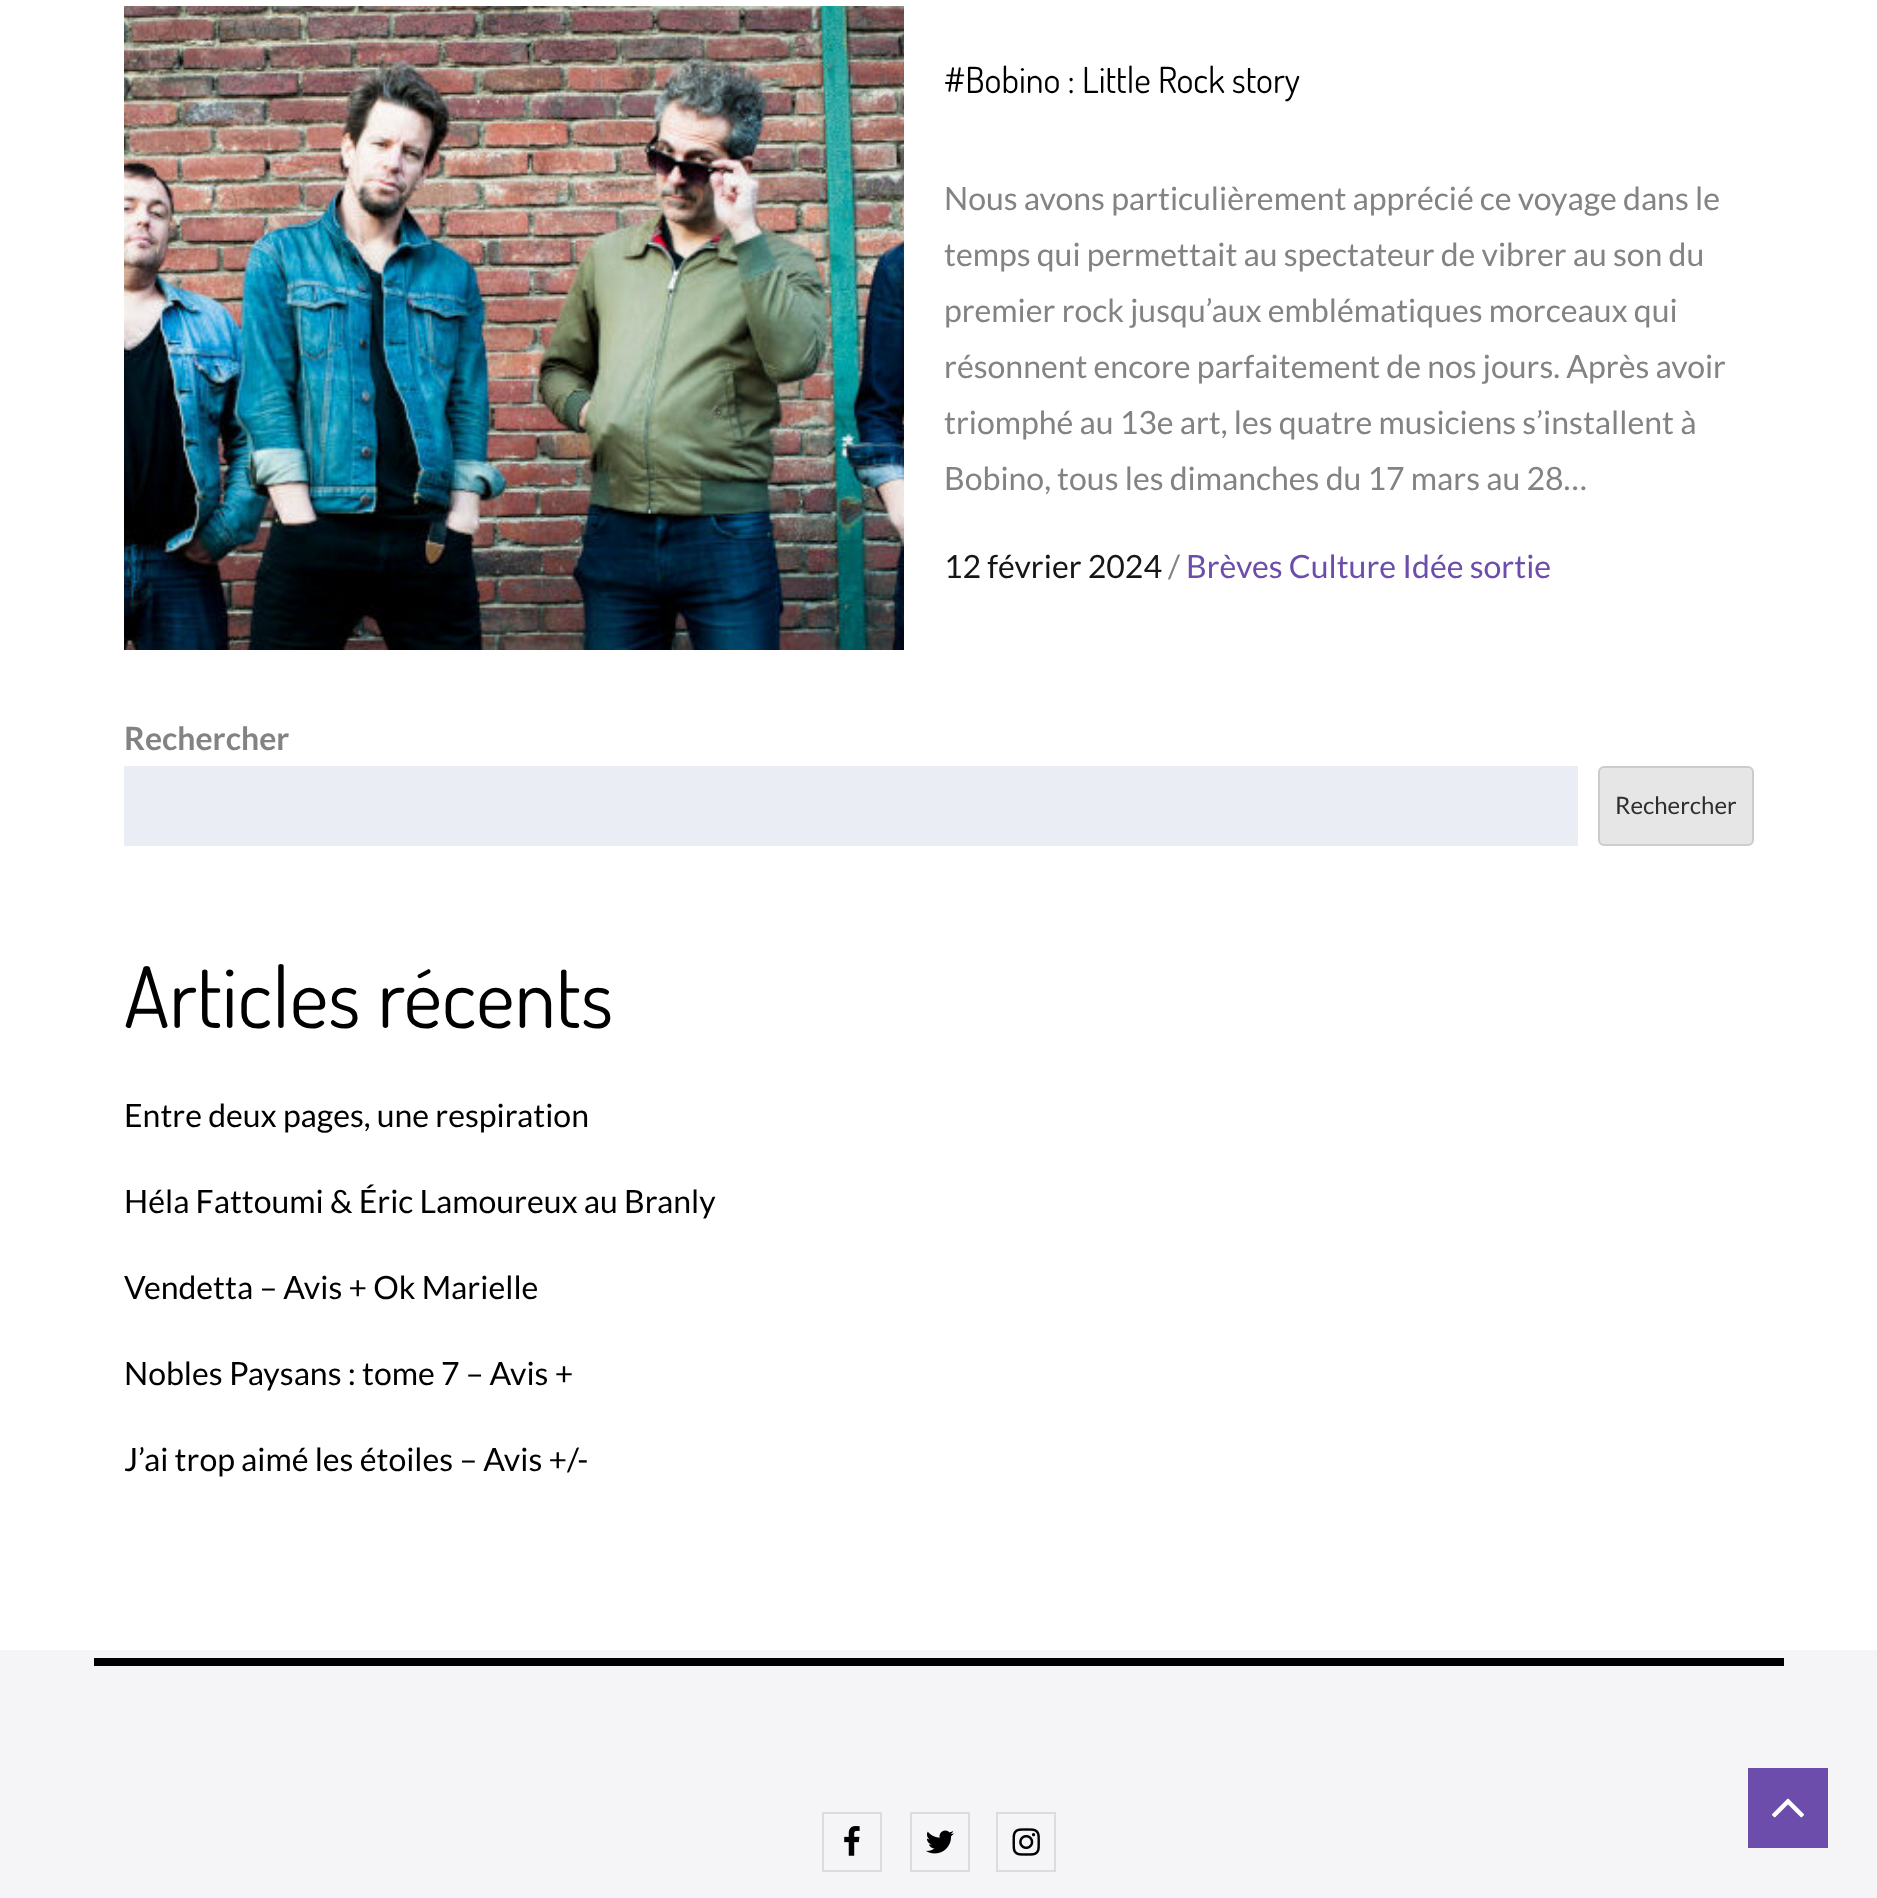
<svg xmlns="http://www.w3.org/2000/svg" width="1877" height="1898">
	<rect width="100%" height="100%" fill="#FFFFFF" />
	<image x="124" y="6" width="780" height="644" href="assets/img1.png" />
	<text x="944" y="93" font-family="Dosis" font-size="36" fill="#000000">#Bobino : Little Rock story</text>
	<g font-family="Lato" font-size="32" fill="#838383">
		<text x="944" y="210">Nous avons particulièrement apprécié ce voyage dans le</text>
		<text x="944" y="266">temps qui permettait au spectateur de vibrer au son du</text>
		<text x="944" y="322">premier rock jusqu’aux emblématiques morceaux qui</text>
		<text x="944" y="378">résonnent encore parfaitement de nos jours. Après avoir</text>
		<text x="944" y="434">triomphé au 13e art, les quatre musiciens s’installent à</text>
		<text x="944" y="490">Bobino, tous les dimanches du 17 mars au 28…</text>
	</g>
	<text x="944" y="578" font-family="Lato" font-size="32" fill="#171616">12 février 2024</text>
	<text x="1168" y="578" font-family="Lato" font-size="32" fill="#838383">/</text>
	<text x="1186" y="578" font-family="Lato" font-size="32" fill="#6D4DAB">Brèves Culture Idée sortie</text>
	<text x="124" y="750" font-family="Lato" font-size="32" font-weight="700" fill="#838383">Rechercher</text>
	<rect x="124" y="766" width="1454" height="80" fill="#EAEDF3" />
	<rect x="1599" y="767" width="154" height="78" rx="5" fill="#E6E6E6" stroke="#CCCCCC" stroke-width="2" />
	<text x="1615" y="814" font-family="Lato" font-size="24" fill="#2E2E2E">Rechercher</text>
	<text x="124" y="1028" font-family="Dosis" font-size="84" fill="#000000">Articles récents</text>
	<g font-family="Lato" font-size="32" fill="#000000">
		<text x="124" y="1127">Entre deux pages, une respiration</text>
		<text x="124" y="1213">Héla Fattoumi &amp; Éric Lamoureux au Branly</text>
		<text x="124" y="1299">Vendetta – Avis + Ok Marielle</text>
		<text x="124" y="1385">Nobles Paysans : tome 7 – Avis +</text>
		<text x="124" y="1471">J’ai trop aimé les étoiles – Avis +/-</text>
	</g>
	<rect x="0" y="1650" width="1877" height="248" fill="#F5F5F7" />
	<rect x="94" y="1658" width="1690" height="8" fill="#000000" />
	<rect x="823" y="1813" width="58" height="58" fill="none" stroke="#DCDCDC" stroke-width="2" />
	<image x="844" y="1826" width="16" height="30" href="assets/img2.png" />
	<rect x="911" y="1813" width="58" height="58" fill="none" stroke="#DCDCDC" stroke-width="2" />
	<image x="926" y="1830" width="28" height="24" href="assets/img3.png" />
	<rect x="997" y="1813" width="58" height="58" fill="none" stroke="#DCDCDC" stroke-width="2" />
	<image x="1012" y="1828" width="28" height="28" href="assets/img4.png" />
	<rect x="1748" y="1768" width="80" height="80" fill="#6D4DAB" />
	<image x="1772" y="1798" width="32" height="20" href="assets/img5.png" />
</svg>
